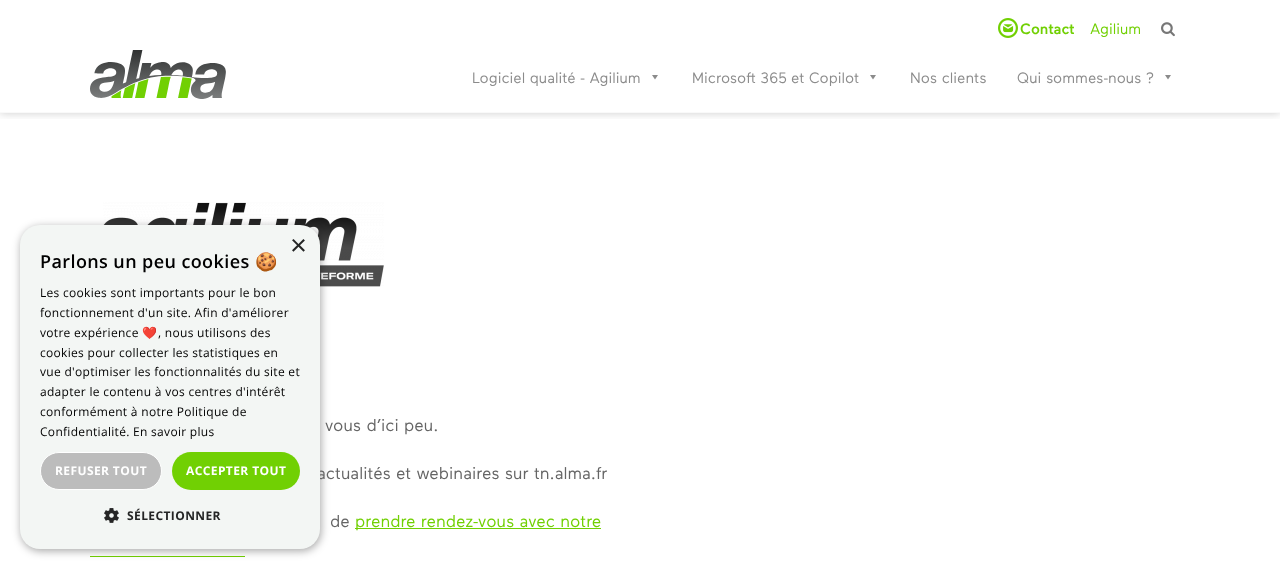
<svg xmlns="http://www.w3.org/2000/svg" width="1280" height="569">
	<defs>
		<clipPath id="clip1"><rect x="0" y="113" width="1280" height="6" /></clipPath>
	</defs>
	<rect width="100%" height="100%" fill="#FFFFFF" />
	<image x="103" y="202" width="281" height="85" href="assets/img5.png" />
	<rect x="90" y="556" width="155" height="1" fill="#71D003" />
	<rect x="21" y="227" width="300" height="324" rx="20" fill="#000000" fill-opacity="0.35" filter="blur(4px)" />
	<text x="317" y="479" font-family="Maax" font-size="17" fill="#656565">actualités et webinaires sur tn.alma.fr</text>
	<rect x="20" y="225" width="300" height="324" rx="20" fill="#F3F6F4" />
	<text x="290" y="255" font-family="Liberation Sans" font-size="29" fill="#242525">×</text>
	<text x="40" y="268" font-family="Open Sans" font-size="18" font-weight="600" letter-spacing="0.4" fill="#000000">Parlons un peu cookies</text>
	<text x="255" y="268" font-family="Noto Color Emoji" font-size="18" font-weight="700" letter-spacing="0.4" fill="#000000">🍪</text>
	<g font-family="Open Sans" font-size="12" letter-spacing="0.3" fill="#000000">
		<text x="40" y="297">Les cookies sont importants pour le bon</text>
		<text x="40" y="317">fonctionnement d'un site. Afin d'améliorer</text>
		<text x="40" y="337">votre expérience</text>
	</g>
	<text x="142" y="337" font-family="Noto Color Emoji" font-size="12" letter-spacing="0.3" fill="#000000">❤️</text>
	<g font-family="Open Sans" font-size="12" letter-spacing="0.3" fill="#000000">
		<text x="158" y="337">, nous utilisons des</text>
		<text x="40" y="357">cookies pour collecter les statistiques en</text>
		<text x="40" y="376">vue d'optimiser les fonctionnalités du site et</text>
		<text x="40" y="396">adapter le contenu à vos centres d'intérêt</text>
		<text x="40" y="416">conformément à notre Politique de</text>
		<text x="40" y="436">Confidentialité. En savoir plus</text>
	</g>
	<rect x="40.5" y="452.5" width="121" height="37" rx="18.5" fill="#BCBCBC" stroke="#FFFFFF" />
	<text x="55" y="475" font-family="Open Sans" font-size="12" font-weight="700" letter-spacing="0.4" fill="#FFFFFF">REFUSER TOUT</text>
	<rect x="172" y="452" width="128" height="38" rx="19" fill="#71D003" />
	<text x="186" y="475" font-family="Open Sans" font-size="12" font-weight="700" letter-spacing="0.4" fill="#FFFFFF">ACCEPTER TOUT</text>
	<image x="104" y="508" width="15" height="15" href="assets/img1.png" />
	<text x="127" y="520" font-family="Open Sans" font-size="12" font-weight="700" letter-spacing="0.4" fill="#242525">SÉLECTIONNER</text>
	<g clip-path="url(#clip1)">
		<rect x="0" y="0" width="1280" height="113" fill="#000000" fill-opacity="0.2" filter="blur(5px)" />
	</g>
	<image x="998" y="18" width="20" height="20" href="assets/img2.png" />
	<text x="1020" y="34" font-family="Maax" font-size="15" font-weight="500" fill="#71D003">Contact</text>
	<text x="1090" y="34" font-family="Maax" font-size="15" fill="#71D003">Agilium</text>
	<image x="1161" y="22" width="14" height="15" href="assets/img3.png" />
	<rect x="0" y="112" width="1280" height="1" fill="#F9F9F9" />
	<image x="90" y="50" width="136" height="49" href="assets/img4.png" />
	<text x="472" y="83" font-family="Maax" font-size="15" fill="#8B8B8B">Logiciel qualité - Agilium</text>
	<path d="M658 75L655 79.5L652 75Z" fill="#8B8B8B" />
	<text x="692" y="83" font-family="Maax" font-size="15" fill="#8B8B8B">Microsoft 365 et Copilot</text>
	<path d="M876 75L873 79.5L870 75Z" fill="#8B8B8B" />
	<g font-family="Maax" font-size="15" fill="#8B8B8B">
		<text x="910" y="83">Nos clients</text>
		<text x="1017" y="83">Qui sommes-nous ?</text>
	</g>
	<path d="M1171 75L1168 79.5L1165 75Z" fill="#8B8B8B" />
	<g font-family="Maax" font-size="17" fill="#656565">
		<text x="325" y="431">vous d’ici peu.</text>
		<text x="330" y="527">de</text>
	</g>
	<rect x="355" y="528" width="246" height="1" fill="#71D003" />
	<text x="355" y="527" font-family="Maax" font-size="17" fill="#71D003">prendre rendez-vous avec notre</text>
</svg>
